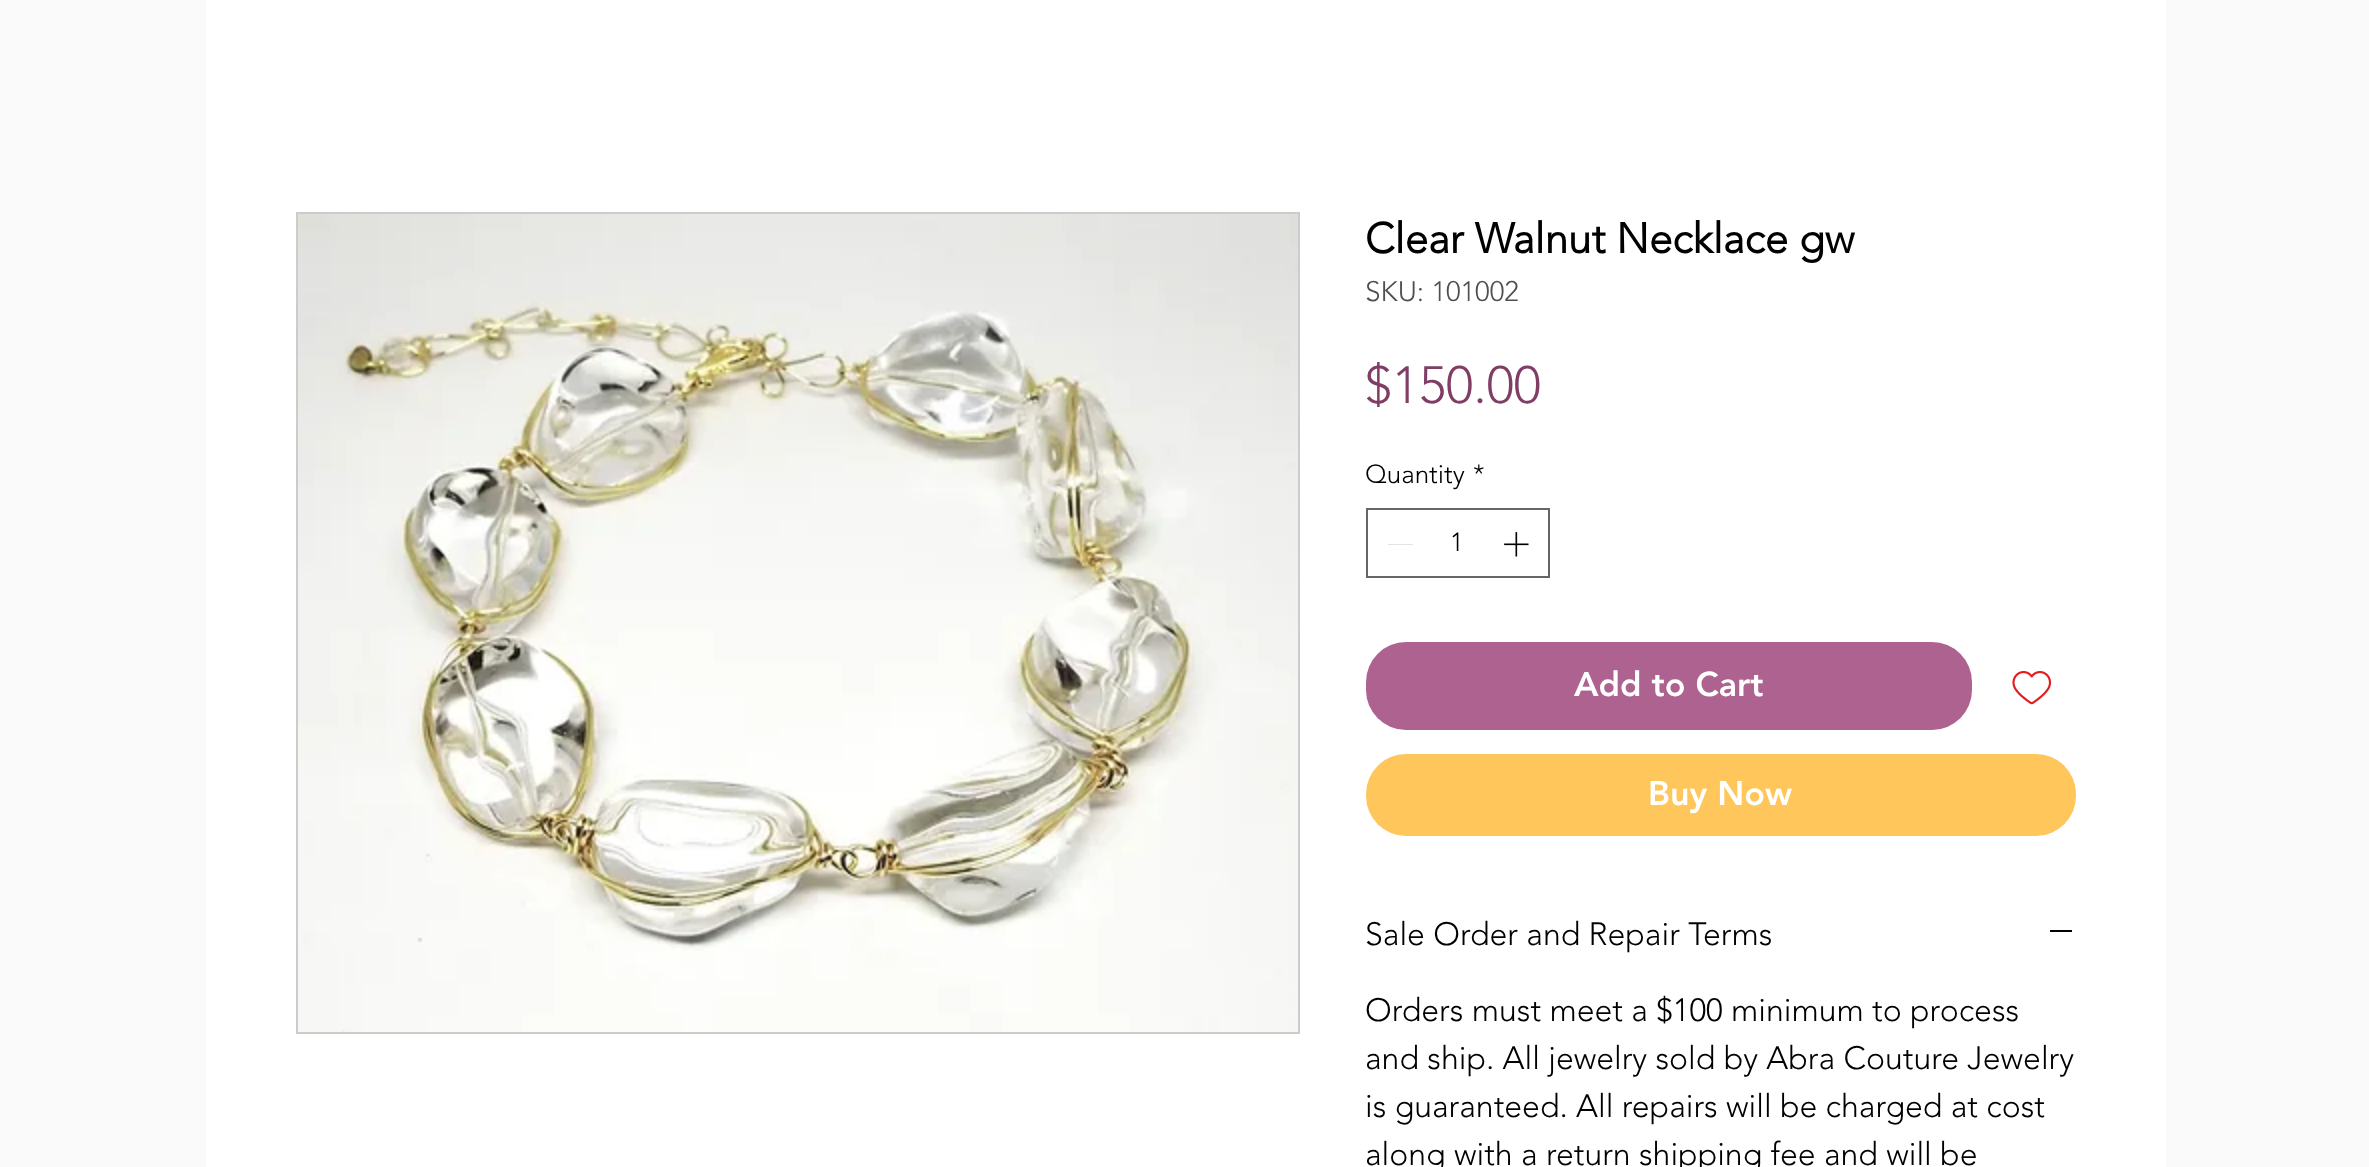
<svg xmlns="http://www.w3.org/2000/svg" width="2369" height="1167">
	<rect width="100%" height="100%" fill="#FAFAFA" />
	<rect x="206" y="0" width="1960" height="1167" fill="#FFFFFF" />
	<rect x="297" y="213" width="1002" height="820" fill="none" stroke="#CCCCCC" stroke-width="2" />
	<image x="298" y="214" width="1000" height="818" href="assets/img1.png" />
	<text x="1365" y="253" font-family="'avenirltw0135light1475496'" font-size="42" font-weight="700" fill="#000000">Clear Walnut Necklace gw</text>
	<text x="1365" y="301" font-family="'avenirltw0135light1475496'" font-size="28" font-weight="300" fill="#504F4F">SKU: 101002</text>
	<text x="1365" y="403" font-family="'avenirltw0135light1475496'" font-size="52" font-weight="300" fill="#803E65">$150.00</text>
	<g font-family="'avenirltw0135light1475496'" font-size="26" font-weight="300" fill="#000000">
		<text x="1365" y="483">Quantity</text>
		<text x="1473" y="483">*</text>
	</g>
	<rect x="1367" y="509" width="182" height="68" fill="none" stroke="#666666" stroke-width="2" />
	<rect x="1388" y="544" width="25" height="1" fill="#E3E3E3" />
	<text x="1450" y="551" font-family="'avenirltw0135light1475496'" font-size="26" font-weight="300" fill="#000000">1</text>
	<image x="1504" y="532" width="25" height="25" href="assets/img2.png" />
	<rect x="1366" y="642" width="606" height="88" rx="40" fill="#AD6290" />
	<text x="1574" y="696" font-family="'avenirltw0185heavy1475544'" font-size="34" font-weight="900" fill="#FFFFFF">Add to Cart</text>
	<image x="2012" y="671" width="40" height="34" href="assets/img3.png" />
	<rect x="1366" y="754" width="710" height="82" rx="40" fill="#FFC65C" />
	<text x="1648" y="805" font-family="'avenirltw0185heavy1475544'" font-size="34" font-weight="900" fill="#FFFFFF">Buy Now</text>
	<text x="1365" y="945" font-family="'avenirltw0135light1475496'" font-size="32" font-weight="300" fill="#000000">Sale Order and Repair Terms</text>
	<rect x="2050" y="930" width="22" height="2" fill="#000000" />
	<g font-family="'avenirltw0135light1475496'" font-size="32" font-weight="300" fill="#000000">
		<text x="1365" y="1021">Orders must meet a $100 minimum to process</text>
		<text x="1365" y="1069">and ship. All jewelry sold by Abra Couture Jewelry</text>
		<text x="1365" y="1117">is guaranteed. All repairs will be charged at cost</text>
		<text x="1365" y="1165">along with a return shipping fee and will be</text>
	</g>
</svg>
